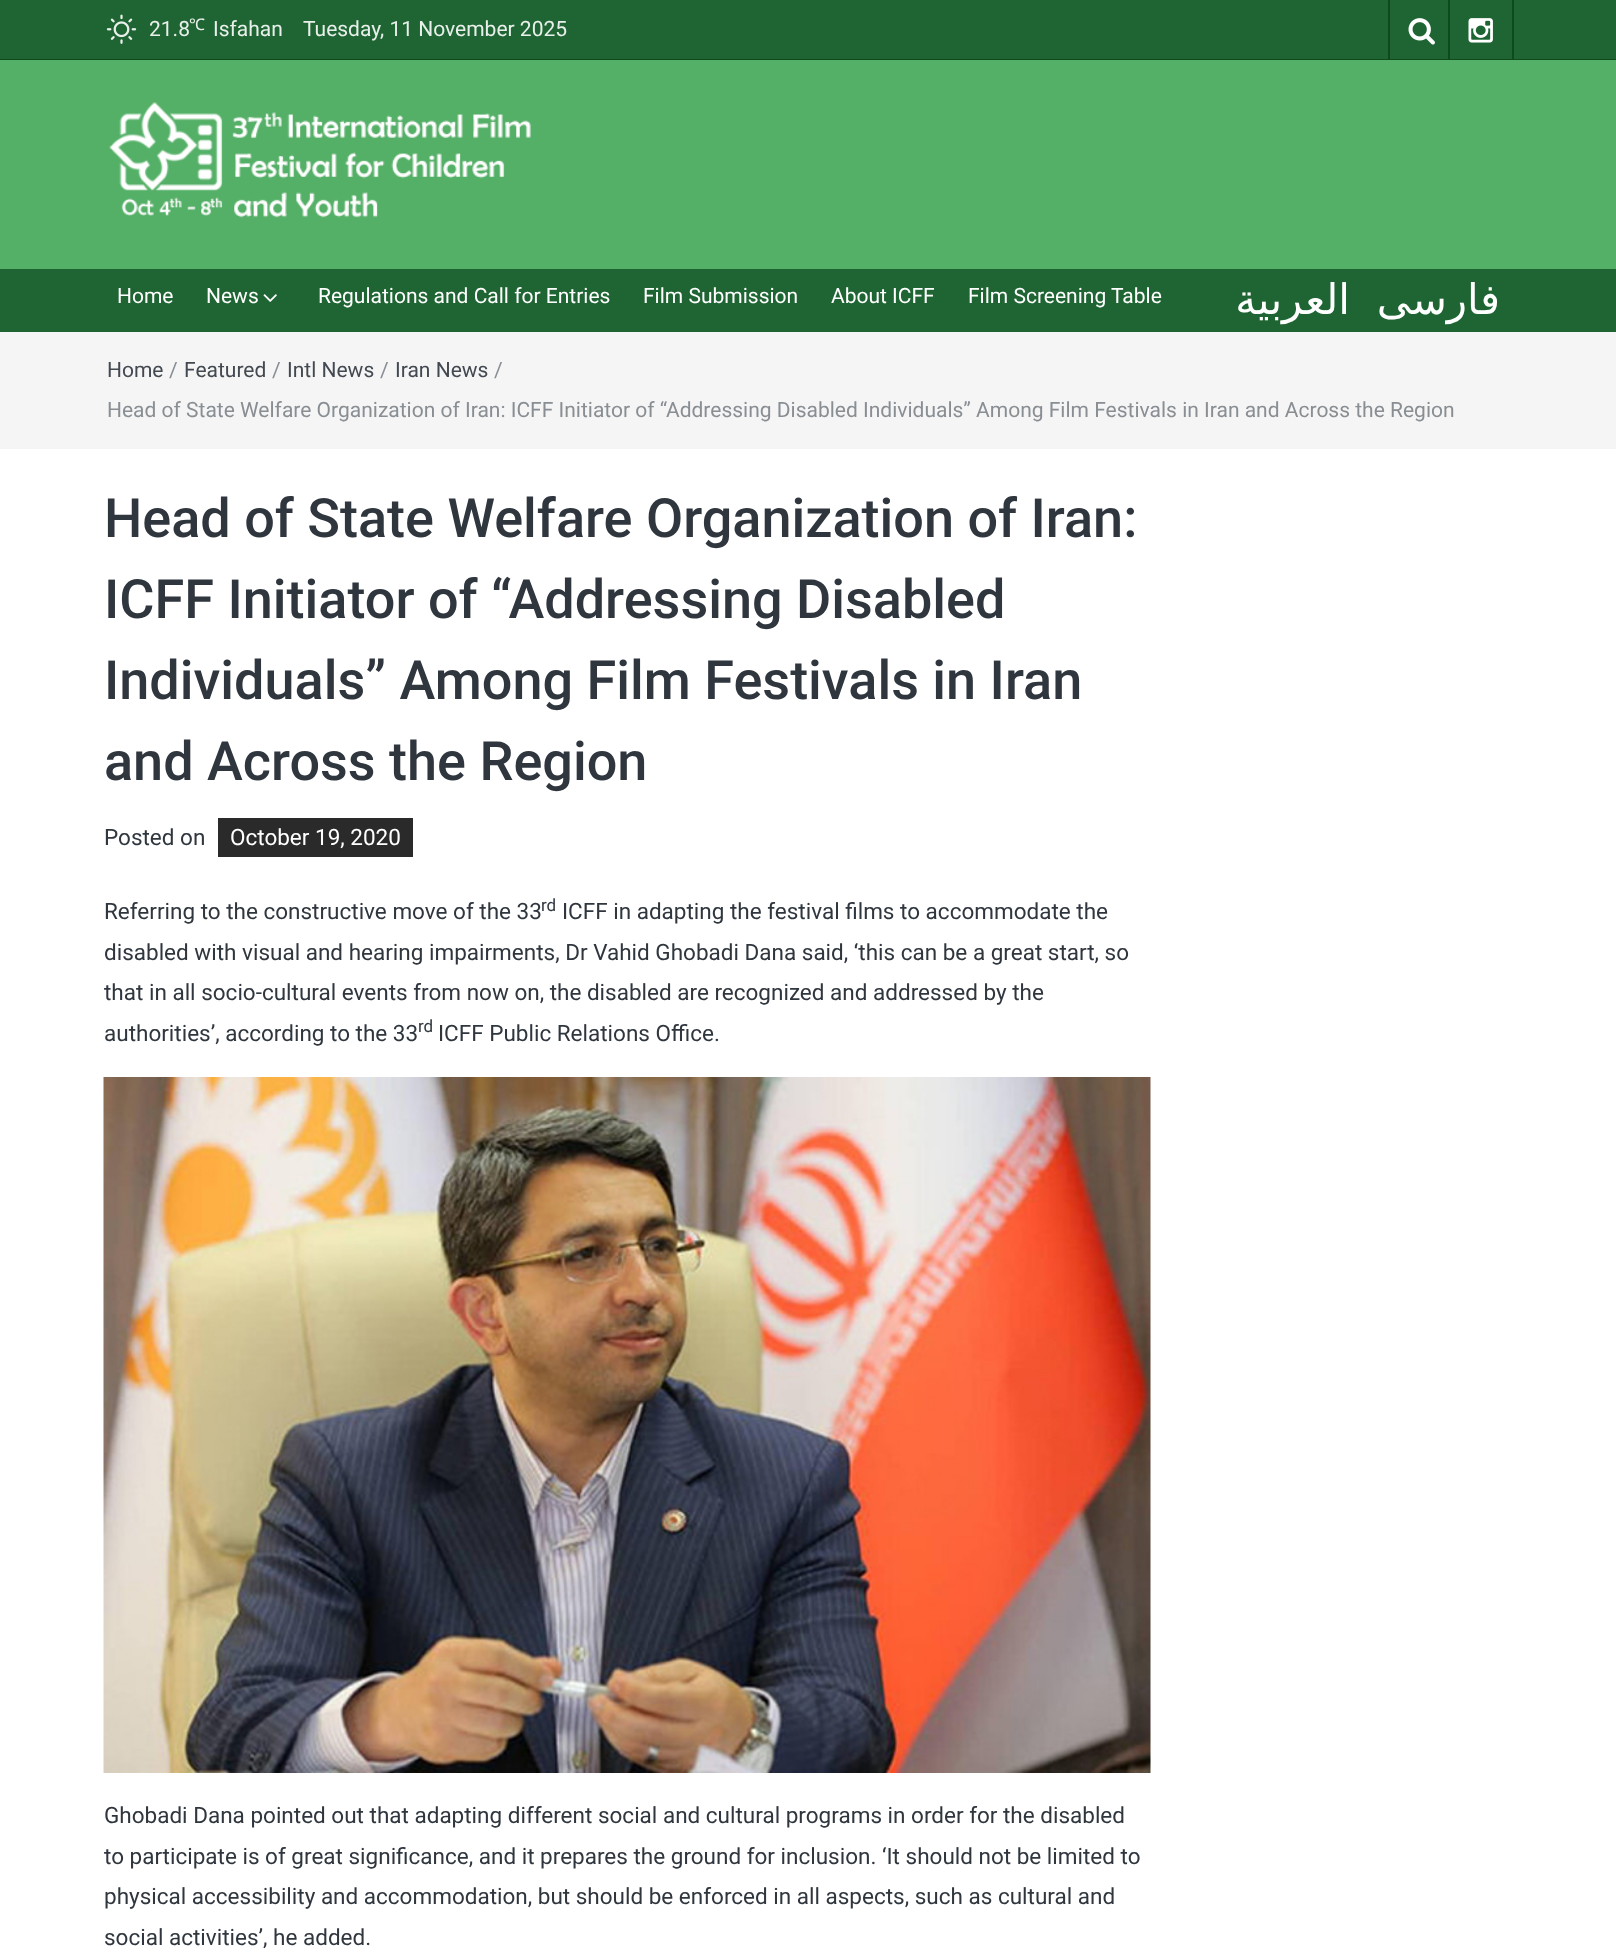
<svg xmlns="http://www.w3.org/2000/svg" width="1616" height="1957">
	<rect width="100%" height="100%" fill="#FFFFFF" />
	<rect x="0" y="0" width="1616" height="59" fill="#1F6533" />
	<rect x="0" y="59" width="1616" height="1" fill="#0F4A1E" />
	<image x="106" y="14" width="31" height="30" href="assets/img1.png" />
	<text x="149" y="36" font-family="Roboto" font-size="21" fill="#E9F0EB">21.8</text>
	<text x="189" y="30" font-family="Noto Sans" font-size="16" fill="#E9F0EB">℃</text>
	<g font-family="Roboto" font-size="21" fill="#E9F0EB">
		<text x="213" y="36">Isfahan</text>
		<text x="303" y="36">Tuesday, 11 November 2025</text>
	</g>
	<rect x="1388" y="0" width="2" height="59" fill="#0F4A1E" />
	<image x="1408" y="18" width="27" height="27" href="assets/img2.png" />
	<rect x="1512" y="0" width="2" height="59" fill="#0F4A1E" />
	<rect x="1448" y="0" width="2" height="59" fill="#0F4A1E" />
	<image x="1468" y="18" width="25" height="25" href="assets/img3.png" />
	<rect x="0" y="60" width="1616" height="209" fill="#54B067" />
	<image x="109" y="102" width="422" height="116" href="assets/img4.png" />
	<rect x="0" y="269" width="1616" height="63" fill="#1F6533" />
	<g font-family="Roboto" font-size="21" fill="#FFFFFF">
		<text x="117" y="303">Home</text>
		<text x="206" y="303">News</text>
	</g>
	<image x="263" y="294" width="14" height="8" href="assets/img5.png" />
	<g font-family="Roboto" font-size="21" fill="#FFFFFF">
		<text x="318" y="303">Regulations and Call for Entries</text>
		<text x="643" y="303">Film Submission</text>
		<text x="831" y="303">About ICFF</text>
		<text x="968" y="303">Film Screening Table</text>
	</g>
	<g font-family="DejaVu Sans" font-size="42" direction="rtl" fill="#FFFFFF">
		<text x="1350" y="314">العربية</text>
		<text x="1500" y="314">فارسی</text>
	</g>
	<rect x="0" y="332" width="1616" height="117" fill="#F5F5F6" />
	<text x="107" y="377" font-family="Roboto" font-size="21" fill="#434950">Home</text>
	<text x="169" y="377" font-family="Roboto" font-size="21" fill="#898E93">/</text>
	<text x="184" y="377" font-family="Roboto" font-size="21" fill="#434950">Featured</text>
	<text x="272" y="377" font-family="Roboto" font-size="21" fill="#898E93">/</text>
	<text x="287" y="377" font-family="Roboto" font-size="21" fill="#434950">Intl News</text>
	<text x="380" y="377" font-family="Roboto" font-size="21" fill="#898E93">/</text>
	<text x="395" y="377" font-family="Roboto" font-size="21" fill="#434950">Iran News</text>
	<g font-family="Roboto" font-size="21" fill="#898E93">
		<text x="494" y="377">/</text>
		<text x="107" y="417">Head of State Welfare Organization of Iran: ICFF Initiator of “Addressing Disabled Individuals” Among Film Festivals in Iran and Across the Region</text>
	</g>
	<g font-family="Roboto" font-size="54" font-weight="500" fill="#2F363E">
		<text x="104" y="537">Head of State Welfare Organization of Iran:</text>
		<text x="104" y="618">ICFF Initiator of “Addressing Disabled</text>
		<text x="104" y="699">Individuals” Among Film Festivals in Iran</text>
		<text x="104" y="780">and Across the Region</text>
	</g>
	<text x="104" y="845" font-family="Roboto" font-size="22.5" fill="#2F363E">Posted on</text>
	<rect x="218" y="818" width="195" height="39" fill="#2A2A2A" />
	<text x="230" y="845" font-family="Roboto" font-size="22.5" fill="#FFFFFF">October 19, 2020</text>
	<text x="104" y="919" font-family="Roboto" font-size="22.5" fill="#2F363E">Referring to the constructive move of the 33</text>
	<text x="541" y="911" font-family="Roboto" font-size="17" fill="#2F363E">rd</text>
	<g font-family="Roboto" font-size="22.5" fill="#2F363E">
		<text x="562" y="919">ICFF in adapting the festival films to accommodate the</text>
		<text x="104" y="960">disabled with visual and hearing impairments, Dr Vahid Ghobadi Dana said, ‘this can be a great start, so</text>
		<text x="104" y="1000">that in all socio-cultural events from now on, the disabled are recognized and addressed by the</text>
		<text x="104" y="1041">authorities’, according to the 33</text>
	</g>
	<text x="418" y="1032" font-family="Roboto" font-size="17" fill="#2F363E">rd</text>
	<text x="438" y="1041" font-family="Roboto" font-size="22.5" fill="#2F363E">ICFF Public Relations Office.</text>
	<image x="103" y="1077" width="1048" height="696" href="assets/img6.png" />
	<g font-family="Roboto" font-size="22.5" fill="#2F363E">
		<text x="104" y="1823">Ghobadi Dana pointed out that adapting different social and cultural programs in order for the disabled</text>
		<text x="104" y="1864">to participate is of great significance, and it prepares the ground for inclusion. ‘It should not be limited to</text>
		<text x="104" y="1904">physical accessibility and accommodation, but should be enforced in all aspects, such as cultural and</text>
		<text x="104" y="1945">social activities’, he added.</text>
	</g>
</svg>
